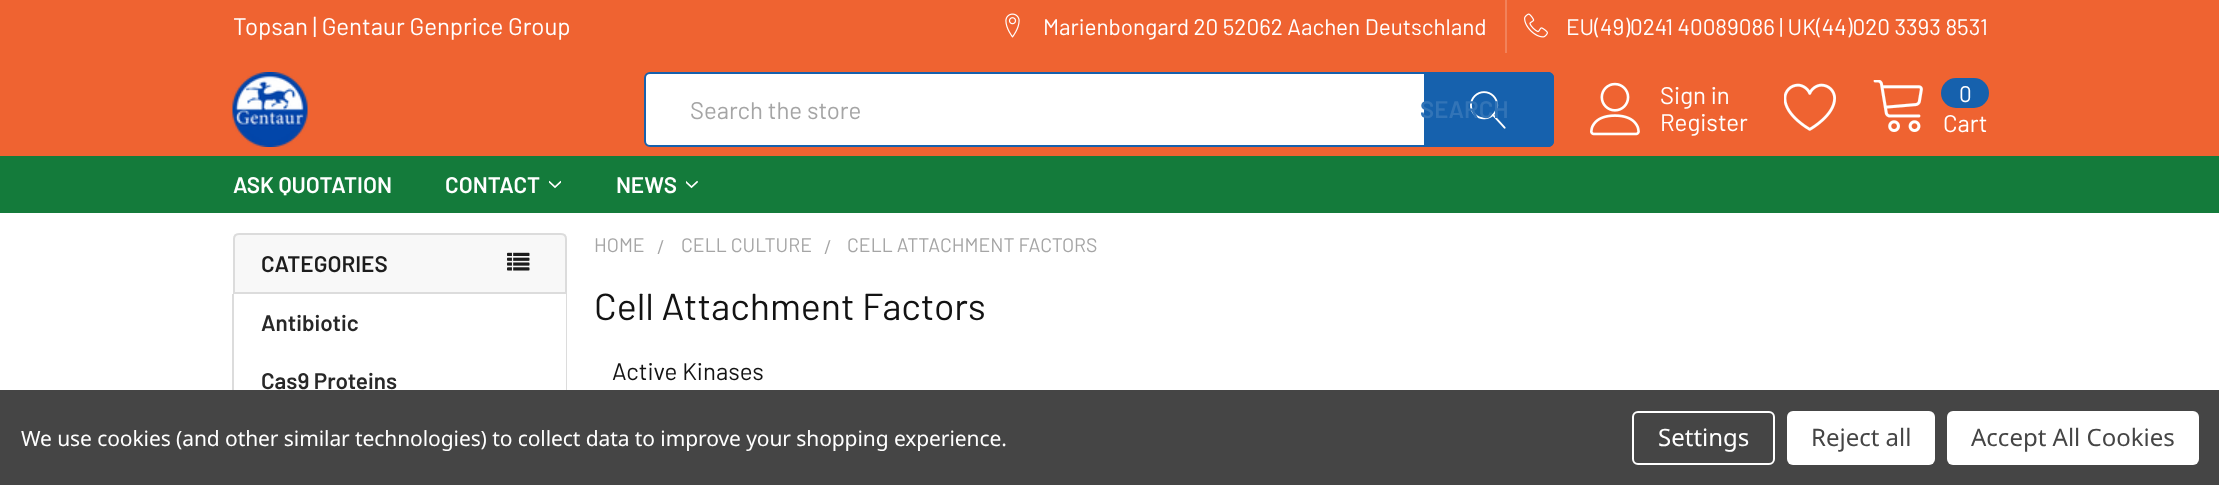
<svg xmlns="http://www.w3.org/2000/svg" width="2219" height="485">
	<rect width="100%" height="100%" fill="#FFFFFF" />
	<rect x="0" y="0" width="2219" height="156" fill="#EF6331" />
	<text x="233" y="35" font-family="Barlow" font-size="24" fill="#FFFFFF">Topsan | Gentaur Genprice Group</text>
	<image x="1005" y="13" width="15" height="25" href="assets/img1.png" />
	<text x="1043" y="35" font-family="Barlow" font-size="22.5" fill="#FFFFFF">Marienbongard 20 52062 Aachen Deutschland</text>
	<rect x="1505" y="0" width="2" height="53" fill="#F2825A" />
	<image x="1524" y="13" width="24" height="25" href="assets/img2.png" />
	<text x="1566" y="35" font-family="Barlow" font-size="22.5" fill="#FFFFFF">EU(49)0241 40089086 | UK(44)020 3393 8531</text>
	<image x="232" y="72" width="76" height="75" href="assets/img3.png" />
	<rect x="645" y="73" width="908" height="73" rx="5" fill="#FFFFFF" stroke="#1661AD" stroke-width="2" />
	<path d="M1424 72H1548C1551.5 72 1554 74.5 1554 78V141C1554 144.5 1551.5 147 1548 147H1424Z" fill="#1661AD" />
	<image x="1470" y="91" width="36" height="38" href="assets/img4.png" />
	<text x="690" y="119" font-family="Barlow" font-size="24" fill="#A5A5A5">Search the store</text>
	<text x="1420" y="118" font-family="Barlow" font-size="24" font-weight="600" fill="#3274B7">SEARCH</text>
	<image x="1590" y="82" width="50" height="54" href="assets/img5.png" />
	<g font-family="Barlow" font-size="24" fill="#FFFFFF">
		<text x="1660" y="104">Sign in</text>
		<text x="1660" y="131">Register</text>
	</g>
	<image x="1784" y="83" width="52" height="48" href="assets/img6.png" />
	<image x="1873" y="80" width="50" height="52" href="assets/img7.png" />
	<rect x="1941" y="78" width="48" height="30" rx="15" fill="#1661AD" />
	<text x="1959" y="102" font-family="Barlow" font-size="22.5" fill="#FFFFFF">0</text>
	<text x="1943" y="132" font-family="Barlow" font-size="24" fill="#FFFFFF">Cart</text>
	<rect x="0" y="156" width="2219" height="57" fill="#147B3B" />
	<g font-family="Barlow" font-size="22.5" font-weight="600" fill="#FFFFFF">
		<text x="233" y="193">ASK QUOTATION</text>
		<text x="445" y="193">CONTACT</text>
	</g>
	<image x="549" y="180" width="12" height="9" href="assets/img8.png" />
	<text x="616" y="193" font-family="Barlow" font-size="22.5" font-weight="600" fill="#FFFFFF">NEWS</text>
	<image x="686" y="180" width="12" height="9" href="assets/img9.png" />
	<path d="M239 233H561C564.5 233 567 235.5 567 239V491H233V239C233 235.5 235.5 233 239 233Z" fill="#F8F8F8" />
	<path d="M239 234H561C564 234 566 236 566 239V293H234V239C234 236 236 234 239 234Z" fill="none" stroke="#DCDCDC" stroke-width="2" />
	<text x="261" y="272" font-family="Barlow" font-size="22.5" font-weight="600" fill="#1D1D1D">CATEGORIES</text>
	<image x="507" y="252" width="23" height="19" href="assets/img10.png" />
	<rect x="234" y="294" width="332" height="96" fill="#FFFFFF" />
	<path d="M232 294H567V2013C567 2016 564 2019 561 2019H238C235 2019 232 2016 232 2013ZM234 294H566V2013C566 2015 563 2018 561 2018H238C236 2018 234 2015 234 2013Z" fill="#DCDCDC" fill-rule="evenodd" />
	<g font-family="Barlow" font-size="22.5" font-weight="600" fill="#282828">
		<text x="261" y="331">Antibiotic</text>
		<text x="261" y="389">Cas9 Proteins</text>
	</g>
	<g font-family="Barlow" font-size="19.5" fill="#A5A5A5">
		<text x="594" y="252">HOME</text>
		<text x="657" y="254">/</text>
		<text x="681" y="252">CELL CULTURE</text>
		<text x="824" y="254">/</text>
		<text x="847" y="252">CELL ATTACHMENT FACTORS</text>
	</g>
	<text x="594" y="320" font-family="Barlow" font-size="37.5" fill="#131313">Cell Attachment Factors</text>
	<text x="612" y="380" font-family="Barlow" font-size="24" fill="#131313">Active Kinases</text>
	<rect x="0" y="390" width="2219" height="95" fill="#454545" />
	<text x="21" y="446" font-family="Noto Sans" font-size="21" letter-spacing="-0.08" fill="#FFFFFF">We use cookies (and other similar technologies) to collect data to improve your shopping experience.</text>
	<rect x="1633" y="412" width="141" height="52" rx="5" fill="none" stroke="#FFFFFF" stroke-width="2" />
	<text x="1658" y="446" font-family="Noto Sans" font-size="24" fill="#FFFFFF">Settings</text>
	<rect x="1787" y="411" width="148" height="54" rx="6" fill="#FFFFFF" />
	<text x="1811" y="446" font-family="Noto Sans" font-size="24" fill="#454545">Reject all</text>
	<rect x="1947" y="411" width="252" height="54" rx="6" fill="#FFFFFF" />
	<text x="1971" y="446" font-family="Noto Sans" font-size="24" fill="#454545">Accept All Cookies</text>
</svg>
